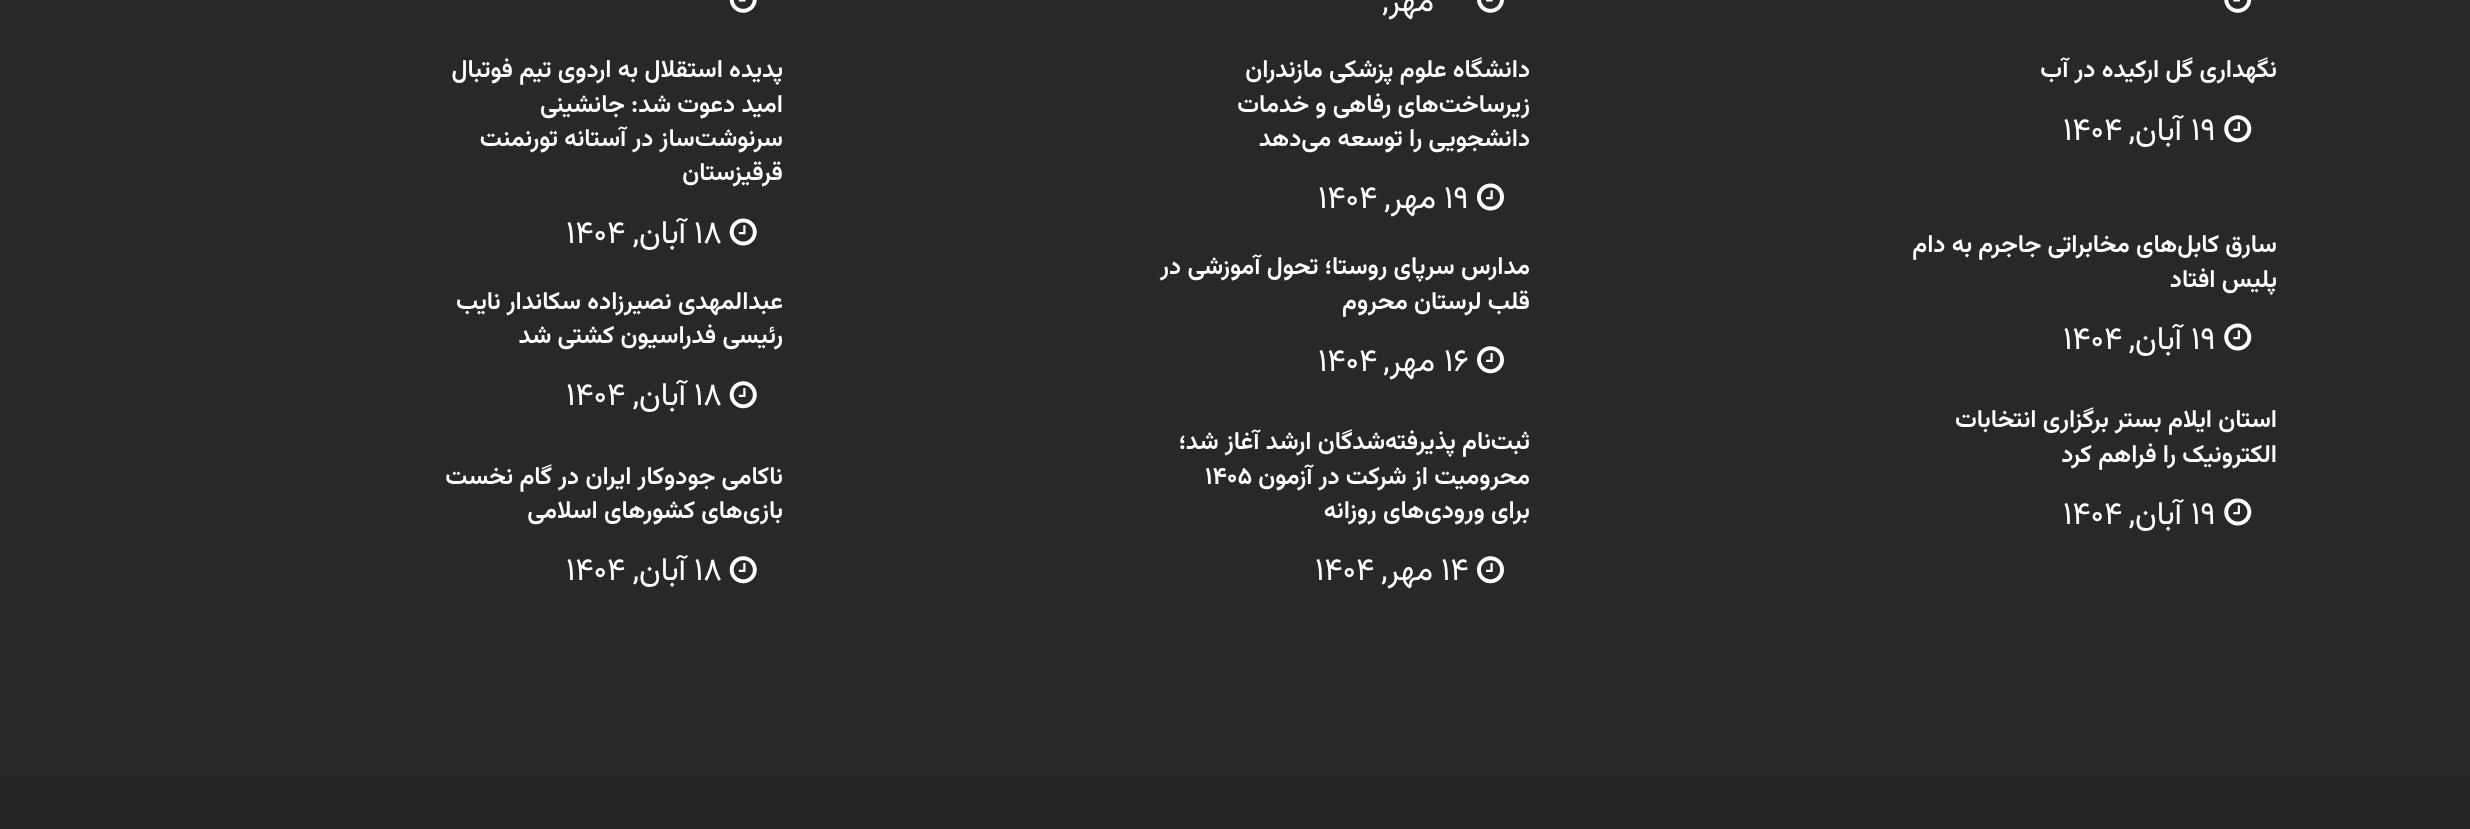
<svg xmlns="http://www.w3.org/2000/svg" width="2470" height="829">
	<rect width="100%" height="100%" fill="#282828" />
	<image x="2224" y="0" width="28" height="13" href="assets/img1.png" />
	<text x="2277" y="77" font-family="Vazirmatn" font-size="24.5" font-weight="600" direction="rtl" fill="#FFFFFF">نگهداری گل ارکیده در آب</text>
	<image x="2224" y="115" width="28" height="28" href="assets/img2.png" />
	<text x="2191" y="140" font-family="Vazirmatn" font-size="32" fill="#FFFFFF">۱۹</text>
	<text x="2182" y="140" font-family="Vazirmatn" font-size="32" direction="rtl" fill="#FFFFFF">آبان,</text>
	<text x="2063" y="140" font-family="Vazirmatn" font-size="32" fill="#FFFFFF">۱۴۰۴</text>
	<g font-family="Vazirmatn" font-size="24.5" font-weight="600" direction="rtl" fill="#FFFFFF">
		<text x="2277" y="252">سارق کابل‌های مخابراتی جاجرم به دام</text>
		<text x="2277" y="287">پلیس افتاد</text>
	</g>
	<image x="2224" y="323" width="28" height="28" href="assets/img3.png" />
	<text x="2191" y="349" font-family="Vazirmatn" font-size="32" fill="#FFFFFF">۱۹</text>
	<text x="2182" y="349" font-family="Vazirmatn" font-size="32" direction="rtl" fill="#FFFFFF">آبان,</text>
	<text x="2063" y="349" font-family="Vazirmatn" font-size="32" fill="#FFFFFF">۱۴۰۴</text>
	<g font-family="Vazirmatn" font-size="24.5" font-weight="600" direction="rtl" fill="#FFFFFF">
		<text x="2277" y="427">استان ایلام بستر برگزاری انتخابات</text>
		<text x="2277" y="462">الکترونیک را فراهم کرد</text>
	</g>
	<image x="2224" y="498" width="28" height="28" href="assets/img3.png" />
	<text x="2191" y="524" font-family="Vazirmatn" font-size="32" fill="#FFFFFF">۱۹</text>
	<text x="2182" y="524" font-family="Vazirmatn" font-size="32" direction="rtl" fill="#FFFFFF">آبان,</text>
	<text x="2063" y="524" font-family="Vazirmatn" font-size="32" fill="#FFFFFF">۱۴۰۴</text>
	<image x="1477" y="0" width="27" height="13" href="assets/img4.png" />
	<text x="1434" y="11" font-family="Vazirmatn" font-size="32" direction="rtl" fill="#FFFFFF">مهر,</text>
	<g font-family="Vazirmatn" font-size="24.5" font-weight="600" direction="rtl" fill="#FFFFFF">
		<text x="1530" y="77">دانشگاه علوم پزشکی مازندران</text>
		<text x="1530" y="112">زیرساخت‌های رفاهی و خدمات</text>
		<text x="1530" y="146">دانشجویی را توسعه می‌دهد</text>
	</g>
	<image x="1477" y="183" width="27" height="28" href="assets/img5.png" />
	<text x="1444" y="208" font-family="Vazirmatn" font-size="32" fill="#FFFFFF">۱۹</text>
	<text x="1436" y="208" font-family="Vazirmatn" font-size="32" direction="rtl" fill="#FFFFFF">مهر,</text>
	<text x="1318" y="208" font-family="Vazirmatn" font-size="32" fill="#FFFFFF">۱۴۰۴</text>
	<g font-family="Vazirmatn" font-size="24.5" font-weight="600" direction="rtl" fill="#FFFFFF">
		<text x="1530" y="274">مدارس سرپای روستا؛ تحول آموزشی در</text>
		<text x="1530" y="309">قلب لرستان محروم</text>
	</g>
	<image x="1477" y="346" width="27" height="28" href="assets/img6.png" />
	<text x="1444" y="371" font-family="Vazirmatn" font-size="32" fill="#FFFFFF">۱۶</text>
	<text x="1435" y="371" font-family="Vazirmatn" font-size="32" direction="rtl" fill="#FFFFFF">مهر,</text>
	<text x="1318" y="371" font-family="Vazirmatn" font-size="32" fill="#FFFFFF">۱۴۰۴</text>
	<g font-family="Vazirmatn" font-size="24.5" font-weight="600" direction="rtl" fill="#FFFFFF">
		<text x="1530" y="449">ثبت‌نام پذیرفته‌شدگان ارشد آغاز شد؛</text>
		<text x="1530" y="484">محرومیت از شرکت در آزمون</text>
	</g>
	<text x="1205" y="484" font-family="Vazirmatn" font-size="24.5" font-weight="600" fill="#FFFFFF">۱۴۰۵</text>
	<text x="1530" y="518" font-family="Vazirmatn" font-size="24.5" font-weight="600" direction="rtl" fill="#FFFFFF">برای ورودی‌های روزانه</text>
	<image x="1477" y="556" width="27" height="28" href="assets/img6.png" />
	<text x="1441" y="580" font-family="Vazirmatn" font-size="32" fill="#FFFFFF">۱۴</text>
	<text x="1433" y="580" font-family="Vazirmatn" font-size="32" direction="rtl" fill="#FFFFFF">مهر,</text>
	<text x="1315" y="580" font-family="Vazirmatn" font-size="32" fill="#FFFFFF">۱۴۰۴</text>
	<image x="729" y="0" width="28" height="13" href="assets/img7.png" />
	<g font-family="Vazirmatn" font-size="24.5" font-weight="600" direction="rtl" fill="#FFFFFF">
		<text x="783" y="77">پدیده استقلال به اردوی تیم فوتبال</text>
		<text x="783" y="112">امید دعوت شد: جانشینی</text>
		<text x="783" y="146">سرنوشت‌ساز در آستانه تورنمنت</text>
		<text x="783" y="180">قرقیزستان</text>
	</g>
	<image x="729" y="218" width="28" height="28" href="assets/img8.png" />
	<text x="694" y="243" font-family="Vazirmatn" font-size="32" fill="#FFFFFF">۱۸</text>
	<text x="686" y="243" font-family="Vazirmatn" font-size="32" direction="rtl" fill="#FFFFFF">آبان,</text>
	<text x="566" y="243" font-family="Vazirmatn" font-size="32" fill="#FFFFFF">۱۴۰۴</text>
	<g font-family="Vazirmatn" font-size="24.5" font-weight="600" direction="rtl" fill="#FFFFFF">
		<text x="783" y="309">عبدالمهدی نصیرزاده سکاندار نایب</text>
		<text x="783" y="343">رئیسی فدراسیون کشتی شد</text>
	</g>
	<image x="729" y="381" width="28" height="28" href="assets/img9.png" />
	<text x="694" y="405" font-family="Vazirmatn" font-size="32" fill="#FFFFFF">۱۸</text>
	<text x="686" y="405" font-family="Vazirmatn" font-size="32" direction="rtl" fill="#FFFFFF">آبان,</text>
	<text x="566" y="405" font-family="Vazirmatn" font-size="32" fill="#FFFFFF">۱۴۰۴</text>
	<g font-family="Vazirmatn" font-size="24.5" font-weight="600" direction="rtl" fill="#FFFFFF">
		<text x="783" y="484">ناکامی جودوکار ایران در گام نخست</text>
		<text x="783" y="518">بازی‌های کشورهای اسلامی</text>
	</g>
	<image x="729" y="556" width="28" height="28" href="assets/img9.png" />
	<text x="694" y="580" font-family="Vazirmatn" font-size="32" fill="#FFFFFF">۱۸</text>
	<text x="686" y="580" font-family="Vazirmatn" font-size="32" direction="rtl" fill="#FFFFFF">آبان,</text>
	<text x="566" y="580" font-family="Vazirmatn" font-size="32" fill="#FFFFFF">۱۴۰۴</text>
	<rect x="0" y="777" width="2470" height="52" fill="#242424" />
</svg>
